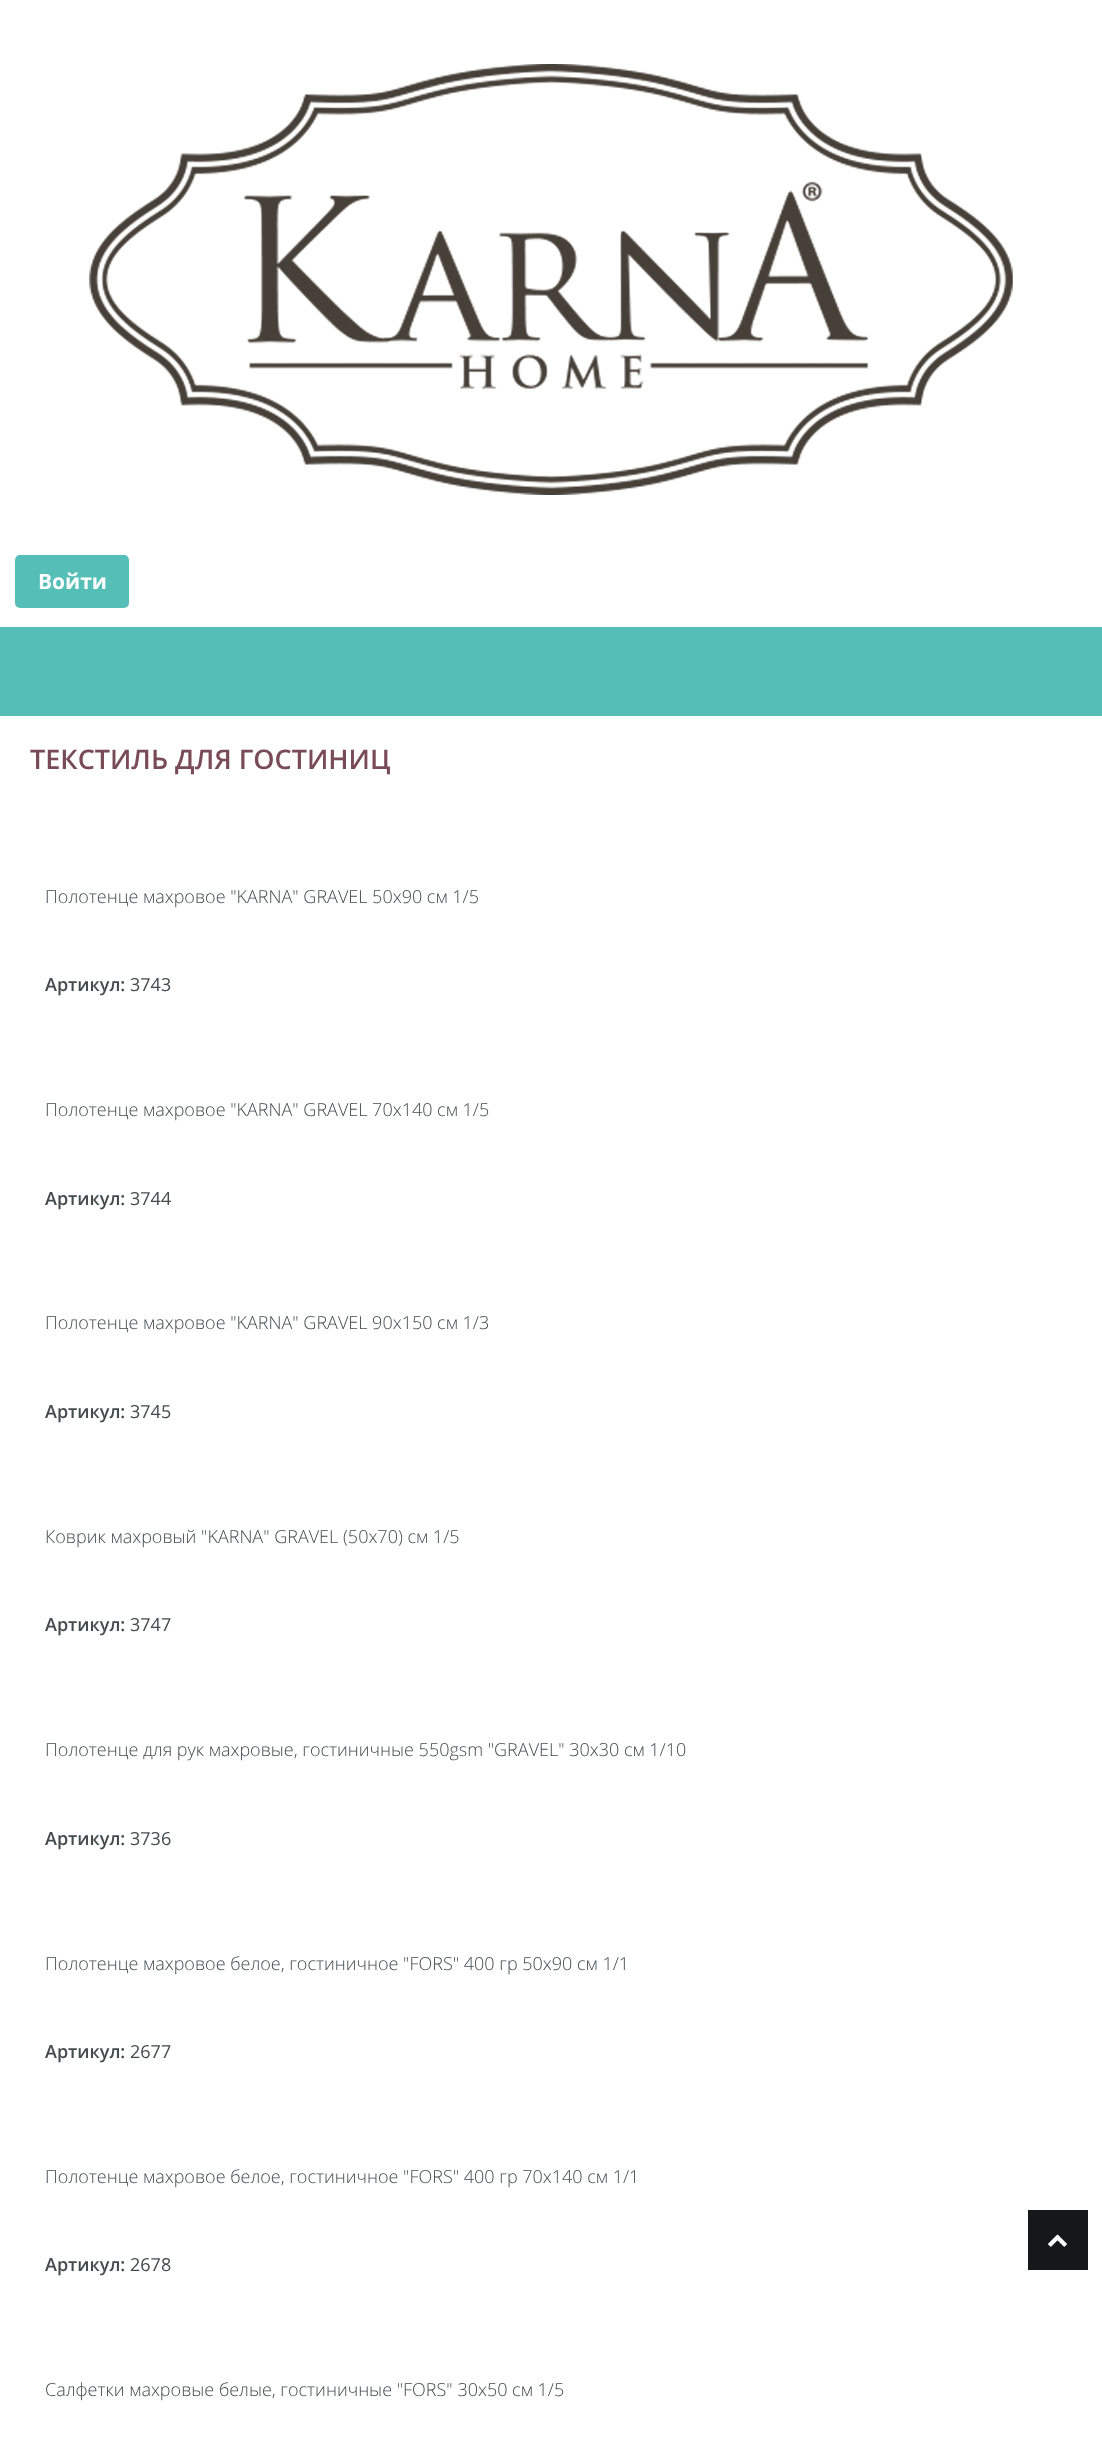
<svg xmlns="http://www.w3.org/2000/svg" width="1102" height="2455">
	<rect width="100%" height="100%" fill="#FFFFFF" />
	<rect x="0" y="627" width="1102" height="89" fill="#55BFB7" />
	<image x="89" y="64" width="924" height="431" href="assets/img1.png" />
	<rect x="15" y="555" width="114" height="53" rx="5" fill="#55BFB7" />
	<text x="38" y="589" font-family="Open Sans" font-size="21" font-weight="700" fill="#FFFFFF">Войти</text>
	<text x="30" y="769" font-family="Open Sans" font-size="27" font-weight="600" fill="#794A58">ТЕКСТИЛЬ ДЛЯ ГОСТИНИЦ</text>
	<text x="45" y="903" font-family="Open Sans" font-size="18" font-weight="300" fill="#434B4D">Полотенце махровое "KARNA" GRAVEL 50х90 см 1/5</text>
	<text x="45" y="991" font-family="Open Sans" font-size="18" font-weight="600" fill="#434B4D">Артикул:</text>
	<text x="130" y="991" font-family="Open Sans" font-size="18" fill="#434B4D">3743</text>
	<text x="45" y="1116" font-family="Open Sans" font-size="18" font-weight="300" fill="#434B4D">Полотенце махровое "KARNA" GRAVEL 70х140 см 1/5</text>
	<text x="45" y="1205" font-family="Open Sans" font-size="18" font-weight="600" fill="#434B4D">Артикул:</text>
	<text x="130" y="1205" font-family="Open Sans" font-size="18" fill="#434B4D">3744</text>
	<text x="45" y="1329" font-family="Open Sans" font-size="18" font-weight="300" fill="#434B4D">Полотенце махровое "KARNA" GRAVEL 90х150 см 1/3</text>
	<text x="45" y="1418" font-family="Open Sans" font-size="18" font-weight="600" fill="#434B4D">Артикул:</text>
	<text x="130" y="1418" font-family="Open Sans" font-size="18" fill="#434B4D">3745</text>
	<text x="45" y="1543" font-family="Open Sans" font-size="18" font-weight="300" fill="#434B4D">Коврик махровый "KARNA" GRAVEL (50x70) см 1/5</text>
	<text x="45" y="1631" font-family="Open Sans" font-size="18" font-weight="600" fill="#434B4D">Артикул:</text>
	<text x="130" y="1631" font-family="Open Sans" font-size="18" fill="#434B4D">3747</text>
	<text x="45" y="1756" font-family="Open Sans" font-size="18" font-weight="300" fill="#434B4D">Полотенце для рук махровые, гостиничные 550gsm "GRAVEL" 30x30 см 1/10</text>
	<text x="45" y="1845" font-family="Open Sans" font-size="18" font-weight="600" fill="#434B4D">Артикул:</text>
	<text x="130" y="1845" font-family="Open Sans" font-size="18" fill="#434B4D">3736</text>
	<text x="45" y="1970" font-family="Open Sans" font-size="18" font-weight="300" fill="#434B4D">Полотенце махровое белое, гостиничное "FORS" 400 гр 50х90 см 1/1</text>
	<text x="45" y="2058" font-family="Open Sans" font-size="18" font-weight="600" fill="#434B4D">Артикул:</text>
	<text x="130" y="2058" font-family="Open Sans" font-size="18" fill="#434B4D">2677</text>
	<text x="45" y="2183" font-family="Open Sans" font-size="18" font-weight="300" fill="#434B4D">Полотенце махровое белое, гостиничное "FORS" 400 гр 70x140 см 1/1</text>
	<text x="45" y="2271" font-family="Open Sans" font-size="18" font-weight="600" fill="#434B4D">Артикул:</text>
	<text x="130" y="2271" font-family="Open Sans" font-size="18" fill="#434B4D">2678</text>
	<text x="45" y="2396" font-family="Open Sans" font-size="18" font-weight="300" fill="#434B4D">Салфетки махровые белые, гостиничные "FORS" 30x50 см 1/5</text>
	<rect x="1028" y="2210" width="60" height="60" fill="#151718" />
	<image x="1048" y="2234" width="19" height="13" href="assets/img2.png" />
</svg>
